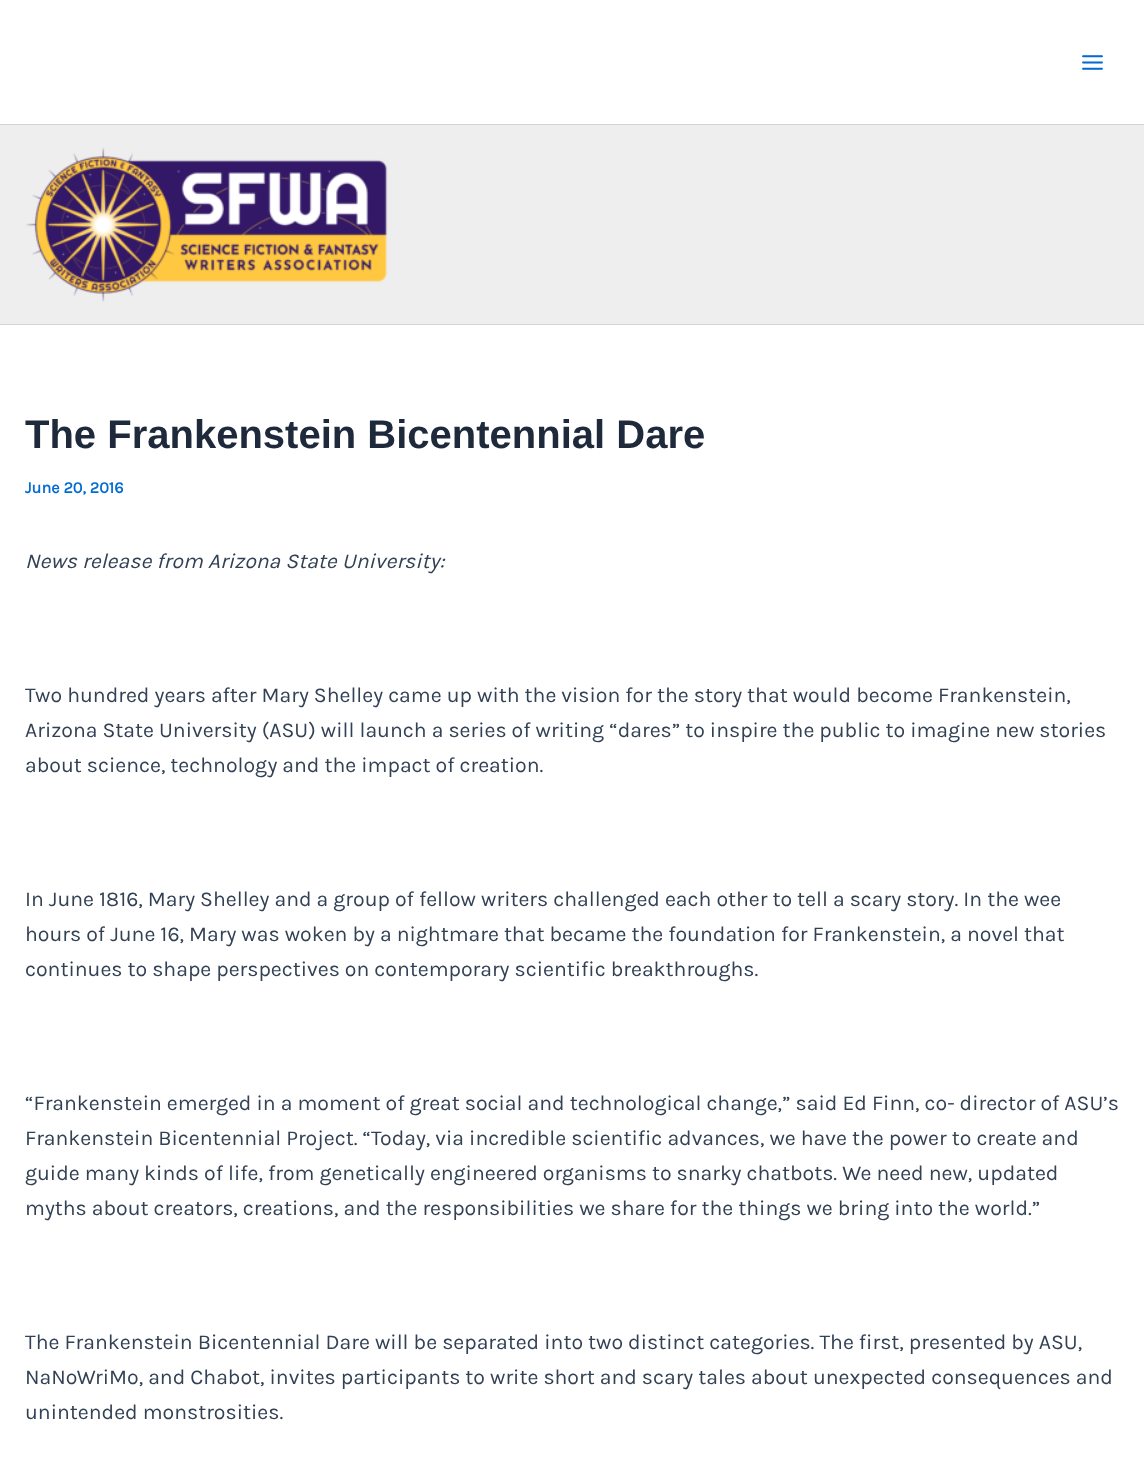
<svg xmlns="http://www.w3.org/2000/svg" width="1144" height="1484">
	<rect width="100%" height="100%" fill="#FFFFFF" />
	<rect x="0" y="124" width="1144" height="1" fill="#D1D5DB" />
	<image x="1082" y="55" width="21" height="15" href="assets/img1.png" />
	<rect x="0" y="125" width="1144" height="199" fill="#EEEEEE" />
	<rect x="0" y="324" width="1144" height="1" fill="#D1D5DB" />
	<image x="26" y="147" width="362" height="155" href="assets/img2.png" />
	<text x="25" y="448" font-family="Liberation Sans" font-size="40" font-weight="700" fill="#1E293B">The Frankenstein Bicentennial Dare</text>
	<text x="25" y="493" font-family="Karla" font-size="16.25" font-weight="700" fill="#046BD2">June 20, 2016</text>
	<text x="25" y="568" font-family="Karla" font-size="21.25" font-style="italic" fill="#334155">News release from Arizona State University:</text>
	<g font-family="Karla" font-size="21.25" fill="#334155">
		<text x="25" y="702">Two hundred years after Mary Shelley came up with the vision for the story that would become Frankenstein,</text>
		<text x="25" y="737">Arizona State University (ASU) will launch a series of writing “dares” to inspire the public to imagine new stories</text>
		<text x="25" y="772">about science, technology and the impact of creation.</text>
		<text x="25" y="906">In June 1816, Mary Shelley and a group of fellow writers challenged each other to tell a scary story. In the wee</text>
		<text x="25" y="941">hours of June 16, Mary was woken by a nightmare that became the foundation for Frankenstein, a novel that</text>
		<text x="25" y="976">continues to shape perspectives on contemporary scientific breakthroughs.</text>
		<text x="25" y="1110">“Frankenstein emerged in a moment of great social and technological change,” said Ed Finn, co- director of ASU’s</text>
		<text x="25" y="1145">Frankenstein Bicentennial Project. “Today, via incredible scientific advances, we have the power to create and</text>
		<text x="25" y="1180">guide many kinds of life, from genetically engineered organisms to snarky chatbots. We need new, updated</text>
		<text x="25" y="1215">myths about creators, creations, and the responsibilities we share for the things we bring into the world.”</text>
		<text x="25" y="1349">The Frankenstein Bicentennial Dare will be separated into two distinct categories. The first, presented by ASU,</text>
		<text x="25" y="1384">NaNoWriMo, and Chabot, invites participants to write short and scary tales about unexpected consequences and</text>
		<text x="25" y="1419">unintended monstrosities.</text>
	</g>
</svg>
